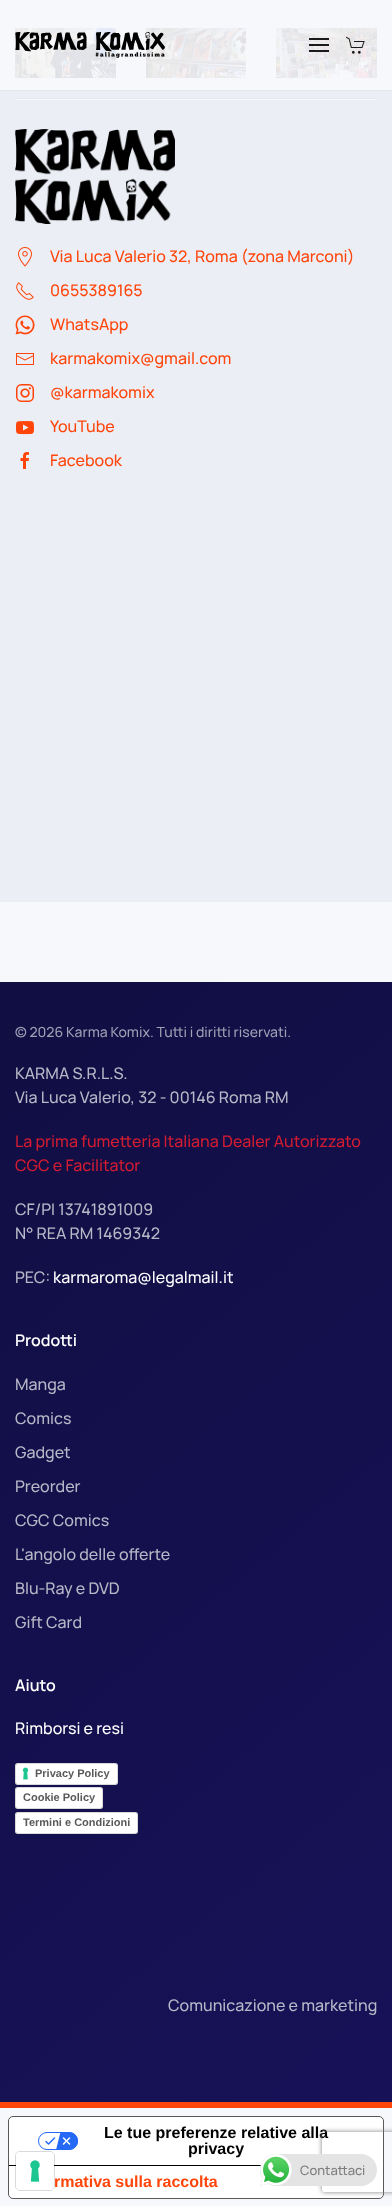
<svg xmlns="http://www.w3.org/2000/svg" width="392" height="2206">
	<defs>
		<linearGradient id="g1" gradientUnits="userSpaceOnUse" x1="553" y1="1967" x2="-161" y2="1117"><stop offset="0" stop-color="#171258" /><stop offset="1" stop-color="#110E43" /></linearGradient>
		<clipPath id="clip1"><path d="M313 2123H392V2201H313ZM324 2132H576C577 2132 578 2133 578 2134V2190C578 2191 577 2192 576 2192H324C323 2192 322 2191 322 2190V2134C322 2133 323 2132 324 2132Z" clip-rule="evenodd" /></clipPath>
	</defs>
	<rect width="100%" height="100%" fill="#F7F8FC" />
	<rect x="0" y="2102" width="392" height="6" fill="#FF450A" />
	<rect x="0" y="90" width="392" height="1" fill="#E5E9ED" />
	<image x="15" y="28" width="101" height="50" href="assets/img3.png" />
	<image x="146" y="28" width="100" height="50" href="assets/img4.png" />
	<image x="15" y="32" width="150" height="26" href="assets/img1.png" />
	<image x="276" y="28" width="101" height="50" href="assets/img5.png" />
	<rect x="309" y="38" width="20" height="2" fill="#1A1A1A" />
	<rect x="309" y="44" width="20" height="2" fill="#1A1A1A" />
	<rect x="309" y="50" width="20" height="2" fill="#1A1A1A" />
	<image x="346" y="36" width="19" height="18" href="assets/img2.png" />
	<rect x="0" y="91" width="392" height="811" fill="#ECEEF6" />
	<rect x="15" y="99" width="362" height="1" fill="#F7F8FB" />
	<rect x="15" y="98" width="362" height="1" fill="#E5E9ED" />
	<image x="15" y="129" width="160" height="95" href="assets/img6.png" />
	<image x="18" y="247" width="14" height="20" href="assets/img7.png" />
	<text x="50" y="262" font-family="'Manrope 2'" font-size="16" font-weight="200" fill="#FF450A">Via Luca Valerio 32, Roma (zona Marconi)</text>
	<image x="16" y="282" width="18" height="18" href="assets/img8.png" />
	<text x="50" y="296" font-family="'Manrope 2'" font-size="16" font-weight="200" fill="#FF450A">0655389165</text>
	<image x="15" y="315" width="20" height="20" href="assets/img9.png" />
	<text x="50" y="330" font-family="'Manrope 2'" font-size="16" font-weight="200" fill="#FF450A">WhatsApp</text>
	<image x="16" y="353" width="18" height="12" href="assets/img10.png" />
	<text x="50" y="364" font-family="'Manrope 2'" font-size="16" font-weight="200" fill="#FF450A">karmakomix@gmail.com</text>
	<image x="16" y="384" width="18" height="18" href="assets/img11.png" />
	<text x="50" y="398" font-family="'Manrope 2'" font-size="16" font-weight="200" fill="#FF450A">@karmakomix</text>
	<image x="16" y="421" width="18" height="14" href="assets/img12.png" />
	<text x="50" y="432" font-family="'Manrope 2'" font-size="16" font-weight="200" fill="#FF450A">YouTube</text>
	<image x="20" y="452" width="9" height="17" href="assets/img13.png" />
	<text x="50" y="466" font-family="'Manrope 2'" font-size="16" font-weight="200" fill="#FF450A">Facebook</text>
	<rect x="0" y="982" width="392" height="1120" fill="url(#g1)" />
	<g font-family="'Manrope 2'" font-size="14" font-weight="200" fill="#A09FB4">
		<text x="15" y="1037">© 2026</text>
		<text x="66" y="1037">Karma Komix. Tutti i diritti riservati.</text>
	</g>
	<g font-family="'Manrope 2'" font-size="16" font-weight="200" fill="#B8B7C7">
		<text x="15" y="1079">KARMA S.R.L.S.</text>
		<text x="15" y="1103">Via Luca Valerio, 32 - 00146 Roma RM</text>
	</g>
	<g font-family="'Manrope 2'" font-size="16" font-weight="200" fill="#D31C31">
		<text x="15" y="1147">La prima fumetteria Italiana Dealer Autorizzato</text>
		<text x="15" y="1171">CGC e Facilitator</text>
	</g>
	<g font-family="'Manrope 2'" font-size="16" font-weight="200" fill="#B8B7C7">
		<text x="15" y="1215">CF/PI 13741891009</text>
		<text x="15" y="1239">N° REA RM 1469342</text>
		<text x="15" y="1283">PEC:</text>
	</g>
	<text x="53" y="1283" font-family="'Manrope 2'" font-size="16" font-weight="200" fill="#FFFFFF">karmaroma@legalmail.it</text>
	<text x="15" y="1346" font-family="Manrope" font-size="16" font-weight="200" fill="#FFFFFF">Prodotti</text>
	<g font-family="'Manrope 2'" font-size="16" font-weight="200" fill="#B8B7C7">
		<text x="15" y="1390">Manga</text>
		<text x="15" y="1424">Comics</text>
		<text x="15" y="1458">Gadget</text>
		<text x="15" y="1492">Preorder</text>
		<text x="15" y="1526">CGC Comics</text>
		<text x="15" y="1560">L'angolo delle offerte</text>
		<text x="15" y="1594">Blu-Ray e DVD</text>
		<text x="15" y="1628">Gift Card</text>
	</g>
	<text x="15" y="1691" font-family="Manrope" font-size="16" font-weight="200" fill="#FFFFFF">Aiuto</text>
	<text x="15" y="1734" font-family="'Manrope 2'" font-size="16" font-weight="200" fill="#FFFFFF">Rimborsi e resi</text>
	<rect x="16" y="1765" width="101" height="20" rx="2" fill="#000000" fill-opacity="0.15" filter="blur(0.5px)" />
	<rect x="15" y="1763" width="103" height="22" rx="3" fill="#FFFFFF" />
	<image x="22" y="1767" width="7" height="13" href="assets/img14.png" />
	<rect x="15.5" y="1763.5" width="102" height="21" rx="2.5" fill="none" stroke="#000000" stroke-opacity="0.15" />
	<text x="35" y="1777" font-family="Liberation Sans" font-size="11" font-weight="700" fill="#595959">Privacy Policy</text>
	<rect x="16" y="1789" width="86" height="20" rx="2" fill="#000000" fill-opacity="0.15" filter="blur(0.5px)" />
	<rect x="15" y="1787" width="88" height="22" rx="3" fill="#FFFFFF" />
	<rect x="15.5" y="1787.5" width="87" height="21" rx="2.5" fill="none" stroke="#000000" stroke-opacity="0.15" />
	<text x="23" y="1801" font-family="Liberation Sans" font-size="11" font-weight="700" fill="#595959">Cookie Policy</text>
	<rect x="16" y="1814" width="121" height="20" rx="2" fill="#000000" fill-opacity="0.15" filter="blur(0.5px)" />
	<rect x="15" y="1812" width="123" height="22" rx="3" fill="#FFFFFF" />
	<rect x="15.5" y="1812.5" width="122" height="21" rx="2.5" fill="none" stroke="#000000" stroke-opacity="0.15" />
	<text x="23" y="1826" font-family="Liberation Sans" font-size="11" font-weight="700" fill="#595959">Termini e Condizioni</text>
	<text x="168" y="2011" font-family="'Manrope 2'" font-size="16" font-weight="200" fill="#B8B7C7">Comunicazione e marketing</text>
	<rect x="8.5" y="2116.5" width="375" height="82" rx="4.5" fill="#FFFFFF" stroke="#595959" />
	<rect x="9" y="2165" width="252" height="1" fill="#000000" />
	<rect x="15.5" y="2151.5" width="39" height="39" rx="4.5" fill="none" stroke="#000000" stroke-opacity="0.15" />
	<rect x="16" y="2152" width="38" height="38" rx="4" fill="#FFFFFF" />
	<image x="30" y="2160" width="10" height="22" href="assets/img15.png" />
	<image x="38" y="2132" width="40" height="18" href="assets/img16.png" />
	<g font-family="Liberation Sans" font-size="16" font-weight="700" fill="#000000">
		<text x="104" y="2138">Le tue preferenze relative alla</text>
		<text x="188" y="2154">privacy</text>
	</g>
	<text x="54" y="2187" font-family="Liberation Sans" font-size="16" font-weight="700" fill="#FF450A">rmativa sulla raccolta</text>
	<g clip-path="url(#clip1)">
		<rect x="322" y="2132" width="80" height="60" rx="2" fill="#808080" filter="blur(2.5px)" />
	</g>
	<rect x="260" y="2154" width="117" height="32" rx="16" fill="#E4E4E4" />
	<image x="260" y="2154" width="32" height="32" href="assets/img17.png" />
	<text x="300" y="2175" font-family="'Manrope 2'" font-size="13" font-weight="200" fill="#7F7D7D">Contattaci</text>
</svg>
